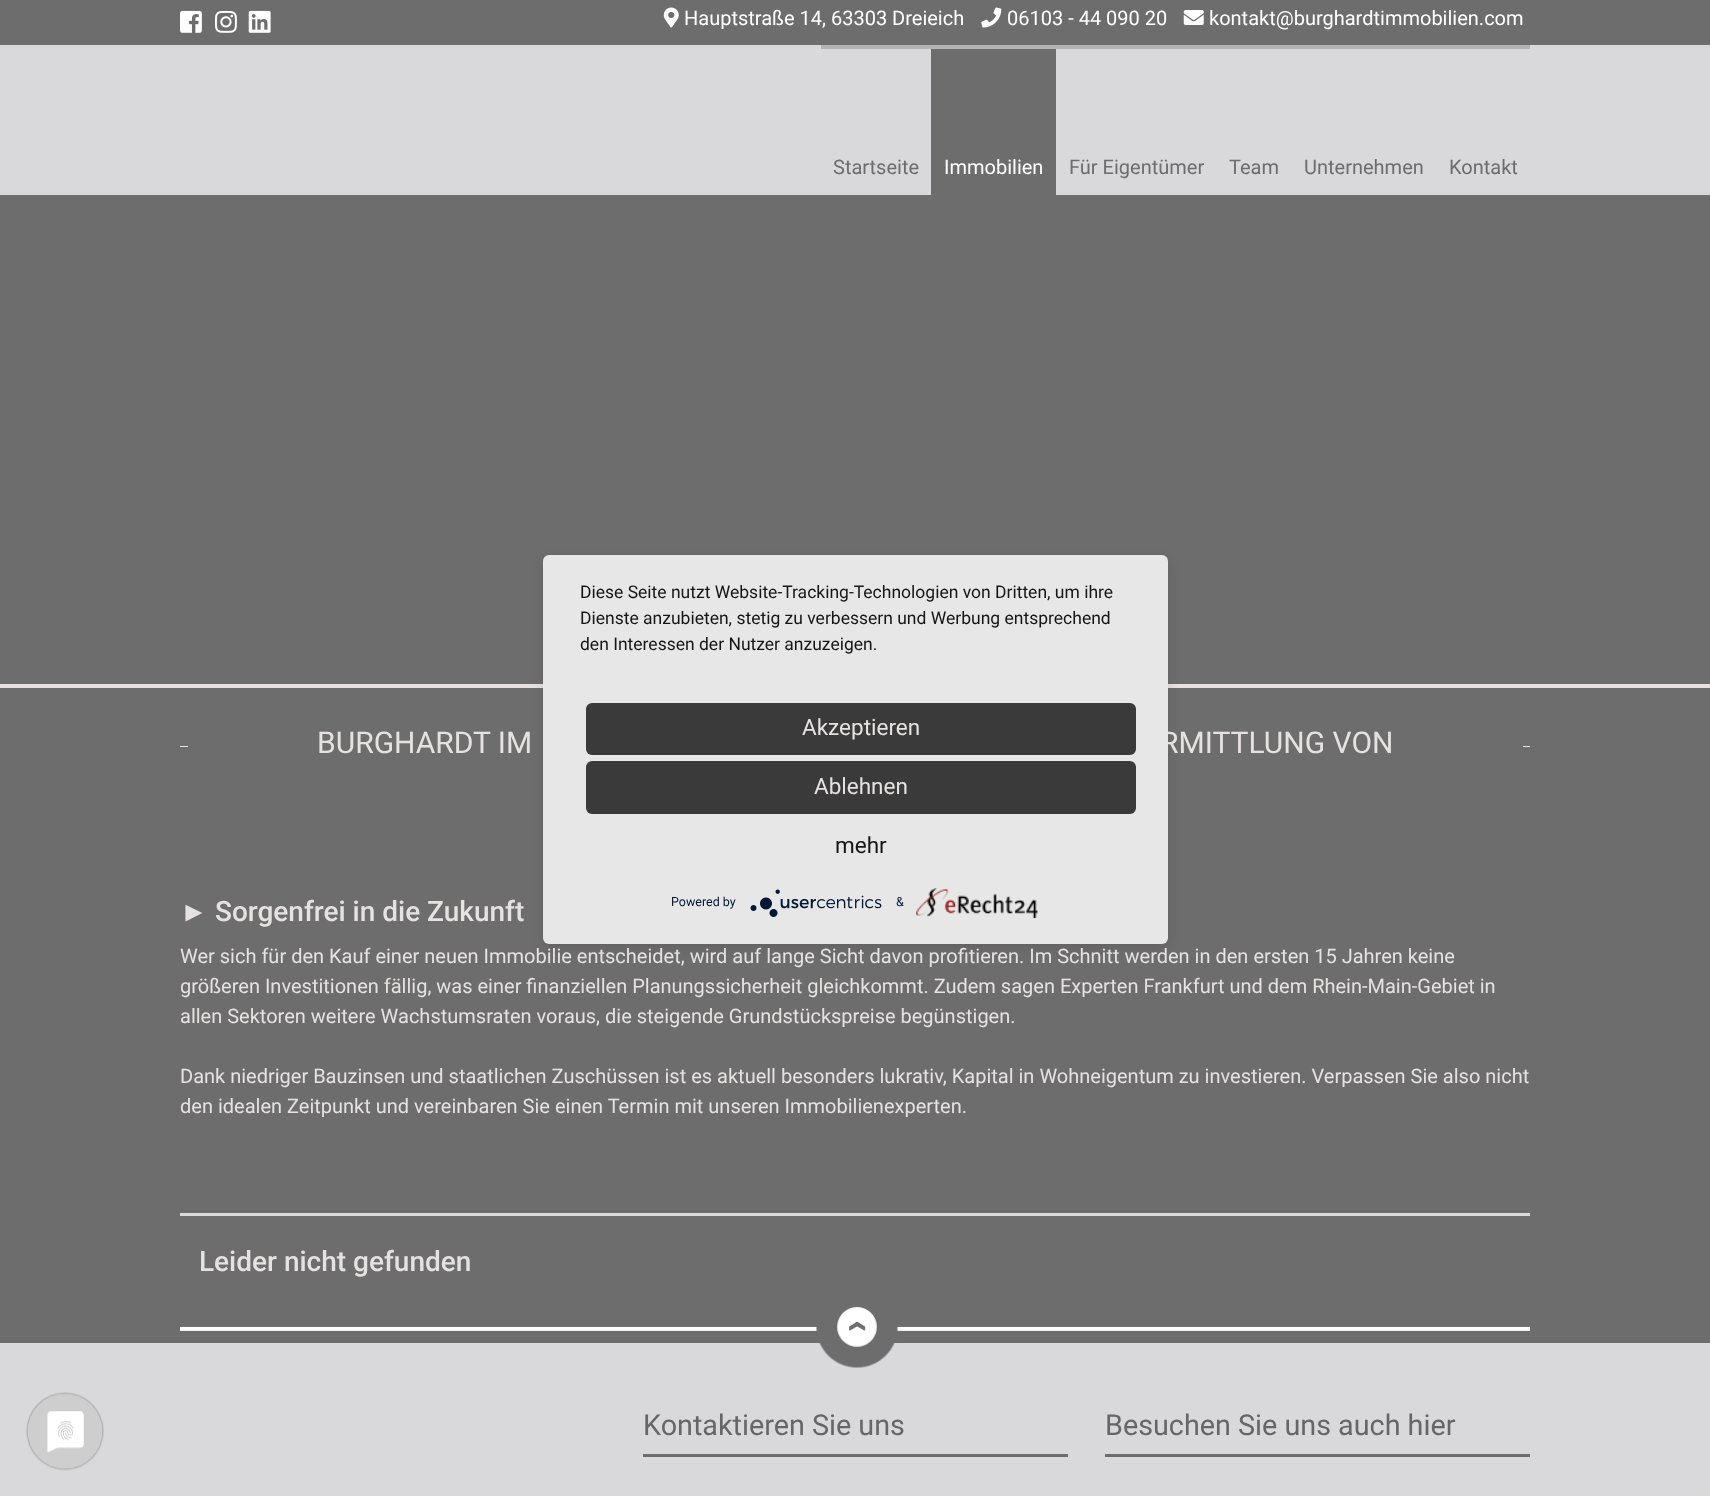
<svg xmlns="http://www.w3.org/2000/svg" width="1710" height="1496">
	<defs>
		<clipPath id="clip1"><rect x="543" y="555" width="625" height="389" rx="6" /></clipPath>
	</defs>
	<rect width="100%" height="100%" fill="#6D6D6D" />
	<image x="180" y="10" width="22" height="23" href="assets/img1.png" />
	<image x="215" y="10" width="22" height="23" href="assets/img2.png" />
	<image x="248" y="10" width="23" height="23" href="assets/img3.png" />
	<image x="663" y="7" width="16" height="21" href="assets/img4.png" />
	<text x="684" y="25" font-family="Roboto" font-size="20" fill="#FFFFFF">Hauptstraße 14, 63303 Dreieich</text>
	<image x="981" y="7" width="21" height="21" href="assets/img5.png" />
	<text x="1007" y="25" font-family="Roboto" font-size="20" fill="#FFFFFF">06103 - 44 090 20</text>
	<image x="1183" y="10" width="21" height="15" href="assets/img6.png" />
	<text x="1209" y="25" font-family="Roboto" font-size="20" fill="#FFFFFF">kontakt@burghardtimmobilien.com</text>
	<rect x="0" y="45" width="1710" height="150" fill="#D9D8DA" />
	<rect x="821" y="45" width="709" height="4" fill="#B4B4B4" />
	<text x="833" y="174" font-family="Roboto" font-size="20" fill="#6D6D6D">Startseite</text>
	<rect x="931" y="49" width="125" height="146" fill="#6D6D6D" />
	<text x="944" y="174" font-family="Roboto" font-size="20" fill="#FFFFFF">Immobilien</text>
	<g font-family="Roboto" font-size="20" fill="#6D6D6D">
		<text x="1069" y="174">Für Eigentümer</text>
		<text x="1229" y="174">Team</text>
		<text x="1304" y="174">Unternehmen</text>
		<text x="1449" y="174">Kontakt</text>
	</g>
	<rect x="0" y="684" width="1710" height="4" fill="#E6E2E2" />
	<rect x="543" y="559" width="625" height="389" rx="6" fill="#000000" fill-opacity="0.1" filter="blur(6px)" />
	<g clip-path="url(#clip1)">
		<rect x="543" y="563" width="625" height="388" fill="#000000" fill-opacity="0.3" filter="blur(22.5px)" />
	</g>
	<text x="1160" y="753" font-family="Roboto" font-size="30" fill="#E6E2E2">RMITTLUNG VON</text>
	<rect x="543" y="555" width="625" height="389" rx="6" fill="#E7E7E7" />
	<g font-family="Roboto" font-size="17.5" fill="#161616">
		<text x="580" y="598">Diese Seite nutzt Website-Tracking-Technologien von Dritten, um ihre</text>
		<text x="580" y="624">Dienste anzubieten, stetig zu verbessern und Werbung entsprechend</text>
		<text x="580" y="650">den Interessen der Nutzer anzuzeigen.</text>
	</g>
	<rect x="586" y="703" width="550" height="52" rx="6" fill="#3A3A3A" />
	<text x="802" y="735" font-family="Roboto" font-size="22.5" fill="#E6E2E2">Akzeptieren</text>
	<rect x="586" y="761" width="550" height="53" rx="6" fill="#3A3A3A" />
	<text x="814" y="794" font-family="Roboto" font-size="22.5" fill="#E6E2E2">Ablehnen</text>
	<text x="835" y="853" font-family="Roboto" font-size="22.5" fill="#161616">mehr</text>
	<text x="671" y="906" font-family="Roboto" font-size="12.5" fill="#021836">Powered by</text>
	<image x="750" y="889" width="132" height="28" href="assets/img7.png" />
	<text x="896" y="906" font-family="Roboto" font-size="12.5" fill="#021836">&amp;</text>
	<image x="916" y="888" width="122" height="31" href="assets/img8.png" />
	<rect x="0" y="1343" width="1710" height="153" fill="#D9D8DA" />
	<image x="26" y="1392" width="78" height="79" href="assets/img9.png" />
	<rect x="180" y="746" width="8" height="1" fill="#E6E2E2" />
	<text x="317" y="753" font-family="Roboto" font-size="30" fill="#E6E2E2">BURGHARDT IM</text>
	<rect x="1523" y="746" width="7" height="1" fill="#E6E2E2" />
	<text x="180" y="921" font-family="Liberation Sans" font-size="28" fill="#E6E2E2">►</text>
	<text x="215" y="921" font-family="Roboto" font-size="28" font-weight="500" fill="#E6E2E2">Sorgenfrei in die Zukunft</text>
	<g font-family="Roboto" font-size="20" fill="#E6E2E2">
		<text x="180" y="963">Wer sich für den Kauf einer neuen Immobilie entscheidet, wird auf lange Sicht davon profitieren. Im Schnitt werden in den ersten 15 Jahren keine</text>
		<text x="180" y="993">größeren Investitionen fällig, was einer finanziellen Planungssicherheit gleichkommt. Zudem sagen Experten Frankfurt und dem Rhein-Main-Gebiet in</text>
		<text x="180" y="1023">allen Sektoren weitere Wachstumsraten voraus, die steigende Grundstückspreise begünstigen.</text>
		<text x="180" y="1083">Dank niedriger Bauzinsen und staatlichen Zuschüssen ist es aktuell besonders lukrativ, Kapital in Wohneigentum zu investieren. Verpassen Sie also nicht</text>
		<text x="180" y="1113">den idealen Zeitpunkt und vereinbaren Sie einen Termin mit unseren Immobilienexperten.</text>
	</g>
	<rect x="180" y="1213" width="1350" height="3" fill="#DADADA" />
	<text x="199" y="1271" font-family="Roboto" font-size="28" font-weight="500" fill="#E6E2E2">Leider nicht gefunden</text>
	<image x="180" y="1307" width="1350" height="61" href="assets/img10.png" />
	<rect x="643" y="1454" width="425" height="3" fill="#6D6D6D" />
	<text x="643" y="1435" font-family="Roboto" font-size="28.75" fill="#666666">Kontaktieren Sie uns</text>
	<rect x="1105" y="1454" width="425" height="3" fill="#6D6D6D" />
	<text x="1105" y="1435" font-family="Roboto" font-size="28.75" fill="#666666">Besuchen Sie uns auch hier</text>
</svg>
